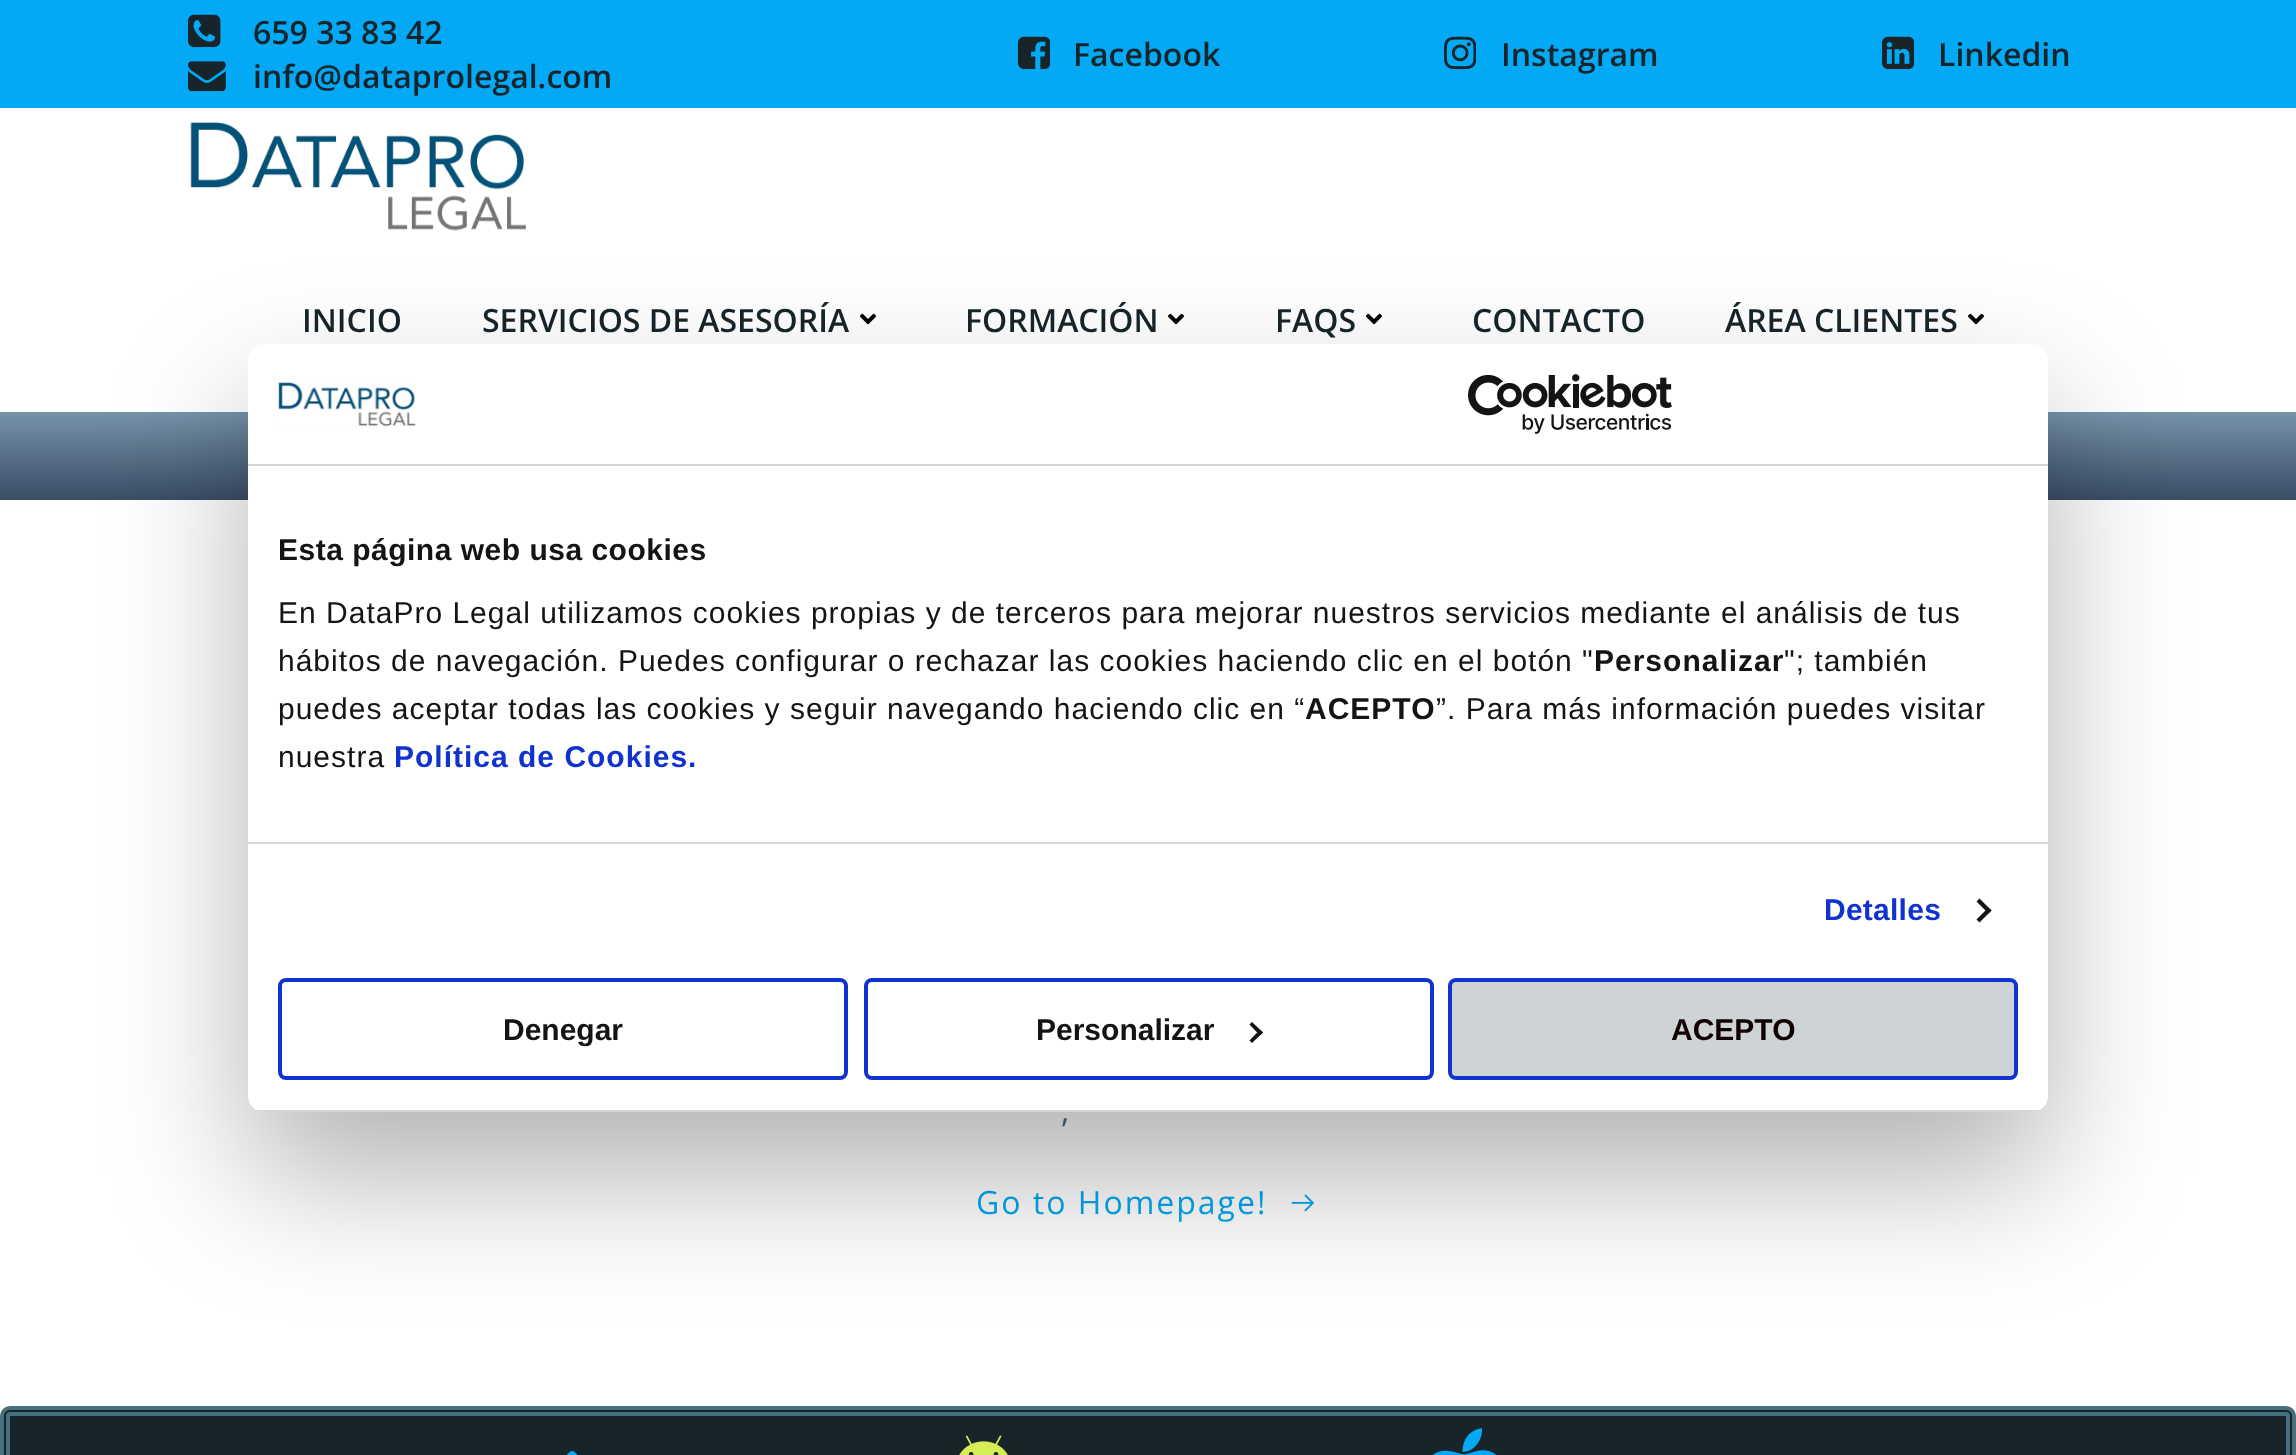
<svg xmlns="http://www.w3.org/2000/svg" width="2296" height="1455">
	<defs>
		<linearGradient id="g1" gradientUnits="userSpaceOnUse" x1="1148" y1="500" x2="1148" y2="412"><stop offset="0" stop-color="#3A4D66" /><stop offset="1" stop-color="#7693AA" /></linearGradient>
		<clipPath id="clip1"><rect x="248" y="344" width="1800" height="768" rx="16" /></clipPath>
	</defs>
	<rect width="100%" height="100%" fill="#FFFFFF" />
	<rect x="0" y="0" width="2296" height="108" fill="#03A9F4" />
	<image x="188" y="14" width="33" height="34" href="assets/img1.png" />
	<text x="253" y="44" font-family="Open Sans" font-size="32" font-weight="600" fill="#17252A">659 33 83 42</text>
	<image x="188" y="61" width="38" height="31" href="assets/img2.png" />
	<text x="253" y="88" font-family="Open Sans" font-size="32" font-weight="600" fill="#17252A">info@dataprolegal.com</text>
	<image x="1018" y="36" width="32" height="34" href="assets/img3.png" />
	<text x="1073" y="66" font-family="Open Sans" font-size="32" font-weight="600" fill="#17252A">Facebook</text>
	<image x="1444" y="36" width="32" height="34" href="assets/img4.png" />
	<text x="1501" y="66" font-family="Open Sans" font-size="32" font-weight="600" fill="#17252A">Instagram</text>
	<image x="1882" y="36" width="32" height="34" href="assets/img5.png" />
	<text x="1938" y="66" font-family="Open Sans" font-size="32" font-weight="600" fill="#17252A">Linkedin</text>
	<image x="190" y="122" width="336" height="109" href="assets/img6.png" />
	<g font-family="Open Sans" font-size="32" font-weight="600" fill="#17252A">
		<text x="302" y="332">INICIO</text>
		<text x="482" y="332">SERVICIOS DE ASESORÍA</text>
	</g>
	<image x="860" y="313" width="16" height="12" href="assets/img7.png" />
	<text x="965" y="332" font-family="Open Sans" font-size="32" font-weight="600" fill="#17252A">FORMACIÓN</text>
	<image x="1168" y="313" width="16" height="12" href="assets/img7.png" />
	<text x="1275" y="332" font-family="Open Sans" font-size="32" font-weight="600" fill="#17252A">FAQS</text>
	<image x="1366" y="313" width="16" height="12" href="assets/img7.png" />
	<g font-family="Open Sans" font-size="32" font-weight="600" fill="#17252A">
		<text x="1472" y="332">CONTACTO</text>
		<text x="1725" y="332">ÁREA CLIENTES</text>
	</g>
	<image x="1968" y="313" width="16" height="12" href="assets/img7.png" />
	<rect x="0" y="412" width="2296" height="88" fill="url(#g1)" />
	<text x="1061" y="1122" font-family="Open Sans" font-size="32" fill="#46707F">,</text>
	<text x="976" y="1214" font-family="Open Sans" font-size="32" letter-spacing="2" fill="#03A9F4">Go to Homepage!</text>
	<image x="1291" y="1194" width="24" height="18" href="assets/img8.png" />
	<rect x="2" y="1408" width="2292" height="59" rx="8" fill="#17252A" stroke="#46707F" stroke-width="4" />
	<rect x="8" y="1414" width="2280" height="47" rx="2" fill="none" stroke="#46707F" stroke-width="4" />
	<image x="566" y="1451" width="12" height="4" href="assets/img9.png" />
	<image x="959" y="1435" width="49" height="20" href="assets/img10.png" />
	<image x="1433" y="1428" width="64" height="27" href="assets/img11.png" />
	<rect x="248" y="408" width="1800" height="768" rx="16" fill="#000000" fill-opacity="0.3" filter="blur(68px)" />
	<rect x="248" y="344" width="1800" height="768" rx="16" fill="#FFFFFF" />
	<rect x="248" y="464" width="1800" height="2" fill="#D6D6D6" />
	<image x="278" y="382" width="138" height="45" href="assets/img12.png" />
	<image x="1468" y="374" width="204" height="60" href="assets/img13.png" />
	<rect x="248" y="842" width="1800" height="2" fill="#D6D6D6" />
	<text x="278" y="560" font-family="Liberation Sans" font-size="30" font-weight="700" letter-spacing="0.5" fill="#141414">Esta página web usa cookies</text>
	<g font-family="Liberation Sans" font-size="30" letter-spacing="1" fill="#141414">
		<text x="278" y="623">En DataPro Legal utilizamos cookies propias y de terceros para mejorar nuestros servicios mediante el análisis de tus</text>
		<text x="278" y="671">hábitos de navegación. Puedes configurar o rechazar las cookies haciendo clic en el botón "</text>
	</g>
	<text x="1594" y="671" font-family="Liberation Sans" font-size="30" font-weight="700" letter-spacing="1" fill="#141414">Personalizar</text>
	<g font-family="Liberation Sans" font-size="30" letter-spacing="1" fill="#141414">
		<text x="1784" y="671">"; también</text>
		<text x="278" y="719">puedes aceptar todas las cookies y seguir navegando haciendo clic en “</text>
	</g>
	<text x="1305" y="719" font-family="Liberation Sans" font-size="30" font-weight="700" letter-spacing="1" fill="#141414">ACEPTO</text>
	<g font-family="Liberation Sans" font-size="30" letter-spacing="1" fill="#141414">
		<text x="1436" y="719">”. Para más información puedes visitar</text>
		<text x="278" y="767">nuestra</text>
	</g>
	<text x="394" y="767" font-family="Liberation Sans" font-size="30" font-weight="700" letter-spacing="1" fill="#1032CF">Política de Cookies.</text>
	<text x="1824" y="920" font-family="Liberation Sans" font-size="30" font-weight="700" letter-spacing="0.25" fill="#1032CF">Detalles</text>
	<path d="M1979.5 898.5L1991.5 910.5L1988.5 913.5L1976.5 901.5Z" fill="#141414" />
	<path d="M1988.5 907.5L1991.5 910.5L1979.5 922.5L1976.5 919.5Z" fill="#141414" />
	<g clip-path="url(#clip1)">
		<rect x="248" y="1110" width="1800" height="2" fill="#D6D6D6" />
	</g>
	<rect x="280" y="980" width="566" height="98" rx="6" fill="none" stroke="#1032CF" stroke-width="4" />
	<text x="503" y="1040" font-family="Liberation Sans" font-size="30" font-weight="700" fill="#141414">Denegar</text>
	<rect x="866" y="980" width="566" height="98" rx="6" fill="none" stroke="#1032CF" stroke-width="4" />
	<text x="1036" y="1040" font-family="Liberation Sans" font-size="30" font-weight="700" fill="#141414">Personalizar</text>
	<path d="M1252 1022L1263 1032.5L1260 1035.5L1249.5 1024.5Z" fill="#141414" />
	<path d="M1260 1029.5L1263 1032.5L1252 1043L1249.5 1040.5Z" fill="#141414" />
	<rect x="1450" y="980" width="566" height="98" rx="6" fill="#CED3D5" stroke="#1032CF" stroke-width="4" />
	<text x="1671" y="1040" font-family="Liberation Sans" font-size="30" font-weight="700" fill="#100101">ACEPTO</text>
</svg>
